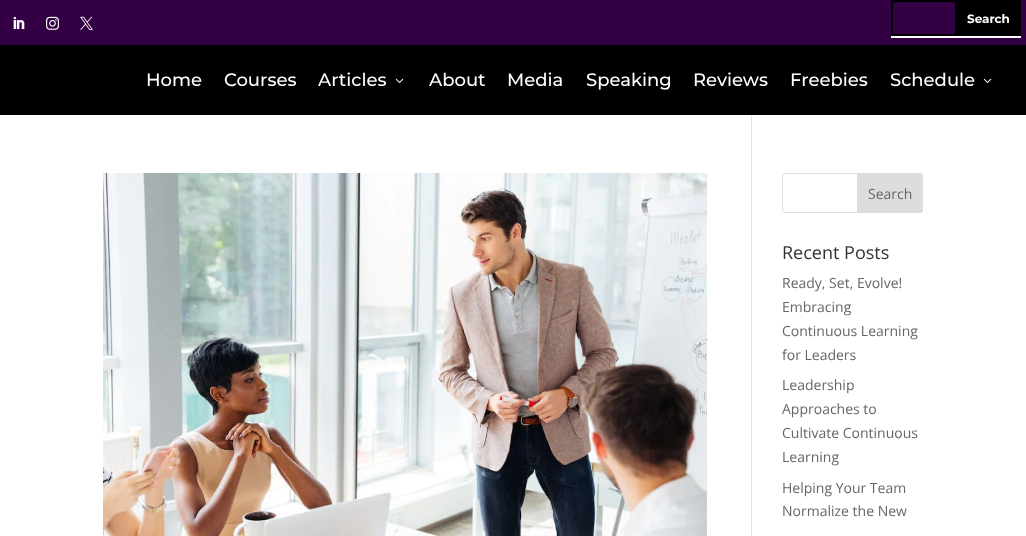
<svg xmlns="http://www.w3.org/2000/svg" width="1026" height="536">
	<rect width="100%" height="100%" fill="#FFFFFF" />
	<rect x="0" y="0" width="1026" height="45" fill="#330044" />
	<image x="13" y="16" width="12" height="13" href="assets/img1.png" />
	<image x="46" y="16" width="13" height="14" href="assets/img2.png" />
	<image x="80" y="16" width="13" height="14" href="assets/img3.png" />
	<rect x="891" y="36" width="130" height="2" fill="#FFFFFF" />
	<rect x="892" y="1" width="64" height="34" fill="none" stroke="#000000" stroke-width="2" />
	<rect x="957" y="0" width="64" height="36" fill="#000000" />
	<text x="967" y="23" font-family="Montserrat" font-size="12" font-weight="700" fill="#FFFFFF">Search</text>
	<rect x="0" y="45" width="1026" height="70" fill="#000000" />
	<g font-family="Montserrat" font-size="18" font-weight="500" fill="#FFFFFF">
		<text x="146" y="86">Home</text>
		<text x="224" y="86">Courses</text>
		<text x="318" y="86">Articles</text>
	</g>
	<image x="395" y="78" width="9" height="5" href="assets/img4.png" />
	<g font-family="Montserrat" font-size="18" font-weight="500" fill="#FFFFFF">
		<text x="429" y="86">About</text>
		<text x="507" y="86">Media</text>
		<text x="586" y="86">Speaking</text>
		<text x="693" y="86">Reviews</text>
		<text x="790" y="86">Freebies</text>
		<text x="890" y="86">Schedule</text>
	</g>
	<image x="983" y="78" width="9" height="5" href="assets/img4.png" />
	<rect x="751" y="115" width="1" height="421" fill="#E2E2E2" />
	<image x="103" y="173" width="604" height="363" href="assets/img5.png" />
	<rect x="782.5" y="173.5" width="140" height="39" rx="2.5" fill="none" stroke="#DDDDDD" />
	<path d="M857.5 173.5H920C921.5 173.5 922.5 174.5 922.5 176V210C922.5 211.5 921.5 212.5 920 212.5H857.5Z" fill="#DDDDDD" stroke="#DDDDDD" />
	<text x="868" y="199" font-family="Open Sans" font-size="14" fill="#666666">Search</text>
	<text x="782" y="259" font-family="Open Sans" font-size="18" fill="#333333">Recent Posts</text>
	<g font-family="Open Sans" font-size="14" fill="#666666">
		<text x="782" y="288">Ready, Set, Evolve!</text>
		<text x="782" y="312">Embracing</text>
		<text x="782" y="336">Continuous Learning</text>
		<text x="782" y="360">for Leaders</text>
		<text x="782" y="390">Leadership</text>
		<text x="782" y="414">Approaches to</text>
		<text x="782" y="438">Cultivate Continuous</text>
		<text x="782" y="462">Learning</text>
		<text x="782" y="493">Helping Your Team</text>
		<text x="782" y="516">Normalize the New</text>
	</g>
</svg>
